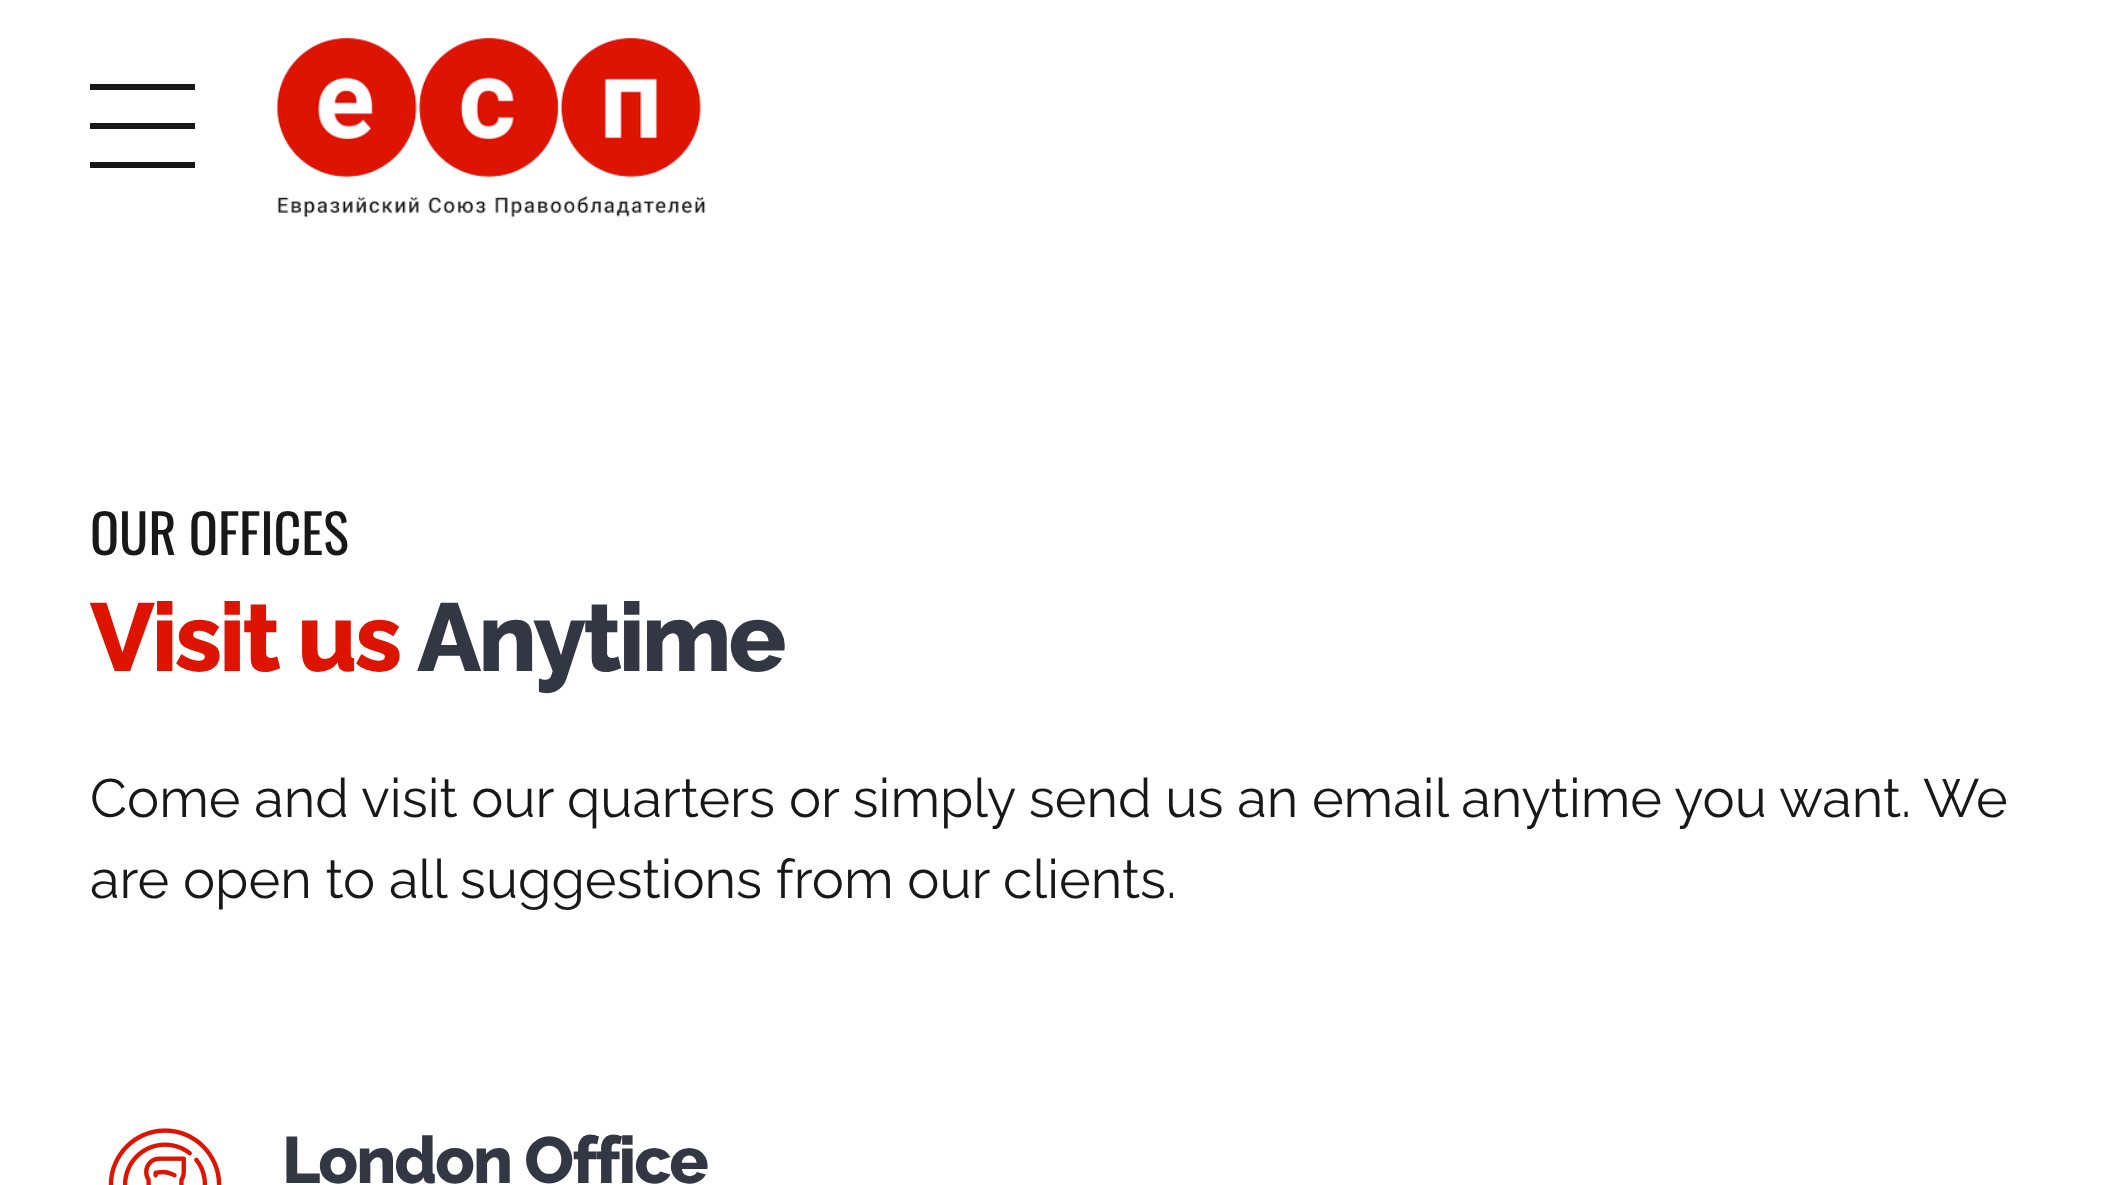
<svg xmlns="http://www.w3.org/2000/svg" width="2106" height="1185">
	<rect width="100%" height="100%" fill="#FFFFFF" />
	<rect x="90" y="84" width="105" height="6" fill="#181818" />
	<rect x="90" y="123" width="105" height="6" fill="#181818" />
	<rect x="90" y="162" width="105" height="6" fill="#181818" />
	<image x="276" y="37" width="430" height="181" href="assets/img1.png" />
	<text x="90" y="555" font-family="Oswald" font-size="54" fill="#181818">OUR OFFICES</text>
	<text x="90" y="671" font-family="Raleway" font-size="96" font-weight="800" letter-spacing="-3" fill="#DD1400">Visit us</text>
	<text x="417" y="671" font-family="Raleway" font-size="96" font-weight="800" letter-spacing="-3" fill="#323743">Anytime</text>
	<g font-family="Raleway" font-size="54" fill="#181818">
		<text x="90" y="817">Come and visit our quarters or simply send us an email anytime you want. We</text>
		<text x="90" y="898">are open to all suggestions from our clients.</text>
	</g>
	<image x="108" y="1128" width="114" height="57" href="assets/img2.png" />
	<text x="282" y="1183" font-family="Raleway" font-size="65.5" font-weight="800" letter-spacing="-2" fill="#323743">London Office</text>
</svg>
